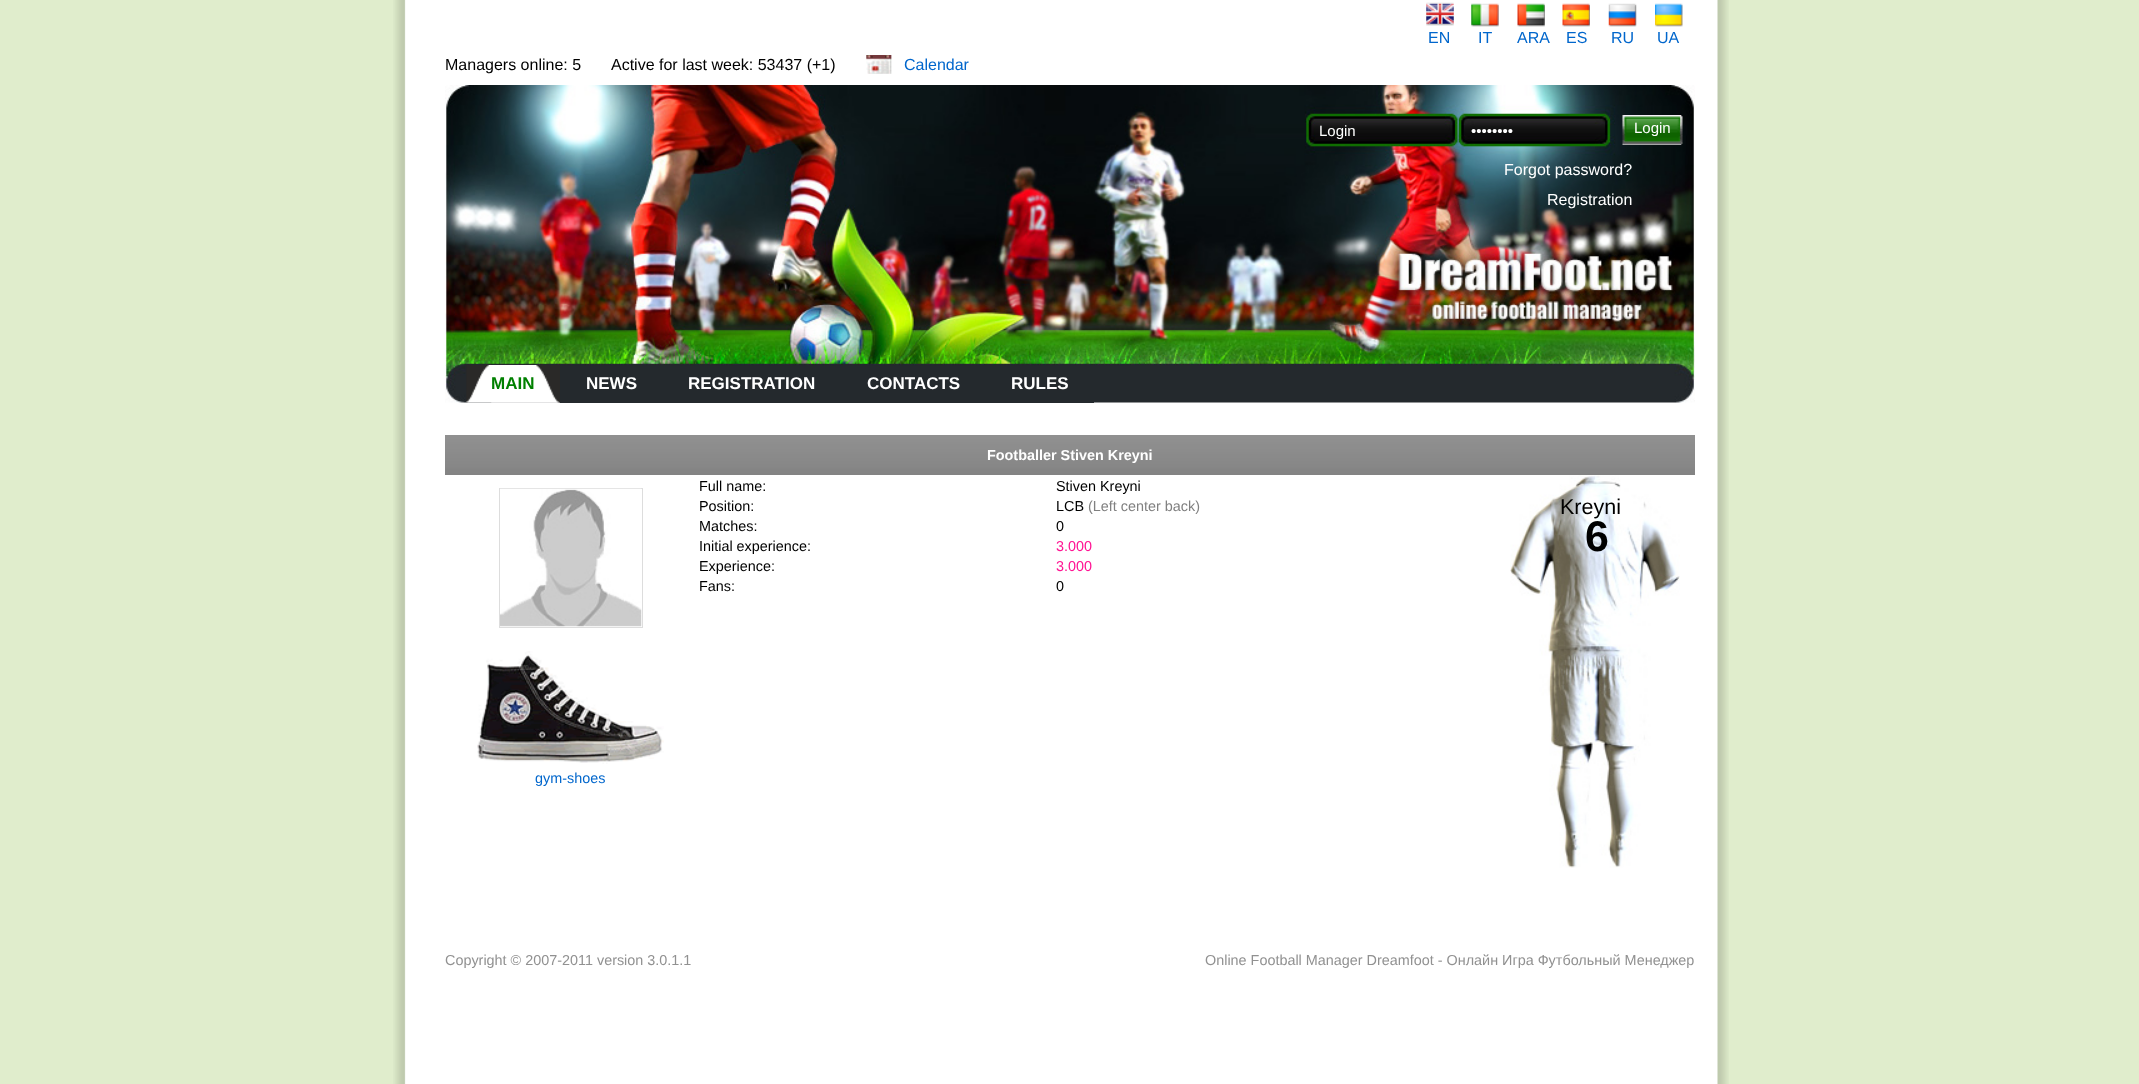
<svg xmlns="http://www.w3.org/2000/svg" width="2139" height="1084">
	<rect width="100%" height="100%" fill="#E0EDCC" />
	<image x="393" y="0" width="1336" height="1084" href="assets/img1.png" />
	<image x="1426" y="2" width="28" height="24" href="assets/img2.png" />
	<text x="1428" y="43" font-family="Liberation Sans" font-size="16" fill="#0066CC">EN</text>
	<image x="1471" y="3" width="28" height="24" href="assets/img3.png" />
	<text x="1478" y="43" font-family="Liberation Sans" font-size="16" fill="#0066CC">IT</text>
	<image x="1517" y="3" width="28" height="24" href="assets/img4.png" />
	<text x="1517" y="43" font-family="Liberation Sans" font-size="16" fill="#0066CC">ARA</text>
	<image x="1562" y="3" width="28" height="24" href="assets/img5.png" />
	<text x="1566" y="43" font-family="Liberation Sans" font-size="16" fill="#0066CC">ES</text>
	<image x="1608" y="3" width="29" height="24" href="assets/img6.png" />
	<text x="1611" y="43" font-family="Liberation Sans" font-size="16" fill="#0066CC">RU</text>
	<image x="1655" y="3" width="28" height="24" href="assets/img7.png" />
	<text x="1657" y="43" font-family="Liberation Sans" font-size="16" fill="#0066CC">UA</text>
	<g font-family="Liberation Sans" font-size="16" fill="#000000">
		<text x="445" y="70">Managers online: 5</text>
		<text x="611" y="70">Active for last week: 53437 (+1)</text>
	</g>
	<image x="866" y="55" width="26" height="19" href="assets/img8.png" />
	<text x="904" y="70" font-family="Liberation Sans" font-size="16" fill="#0066CC">Calendar</text>
	<image x="445" y="85" width="1250" height="318" href="assets/img9.png" />
	<g font-family="Liberation Sans" font-size="15" fill="#FFFFFF">
		<text x="1319" y="136">Login</text>
		<text x="1471" y="136">••••••••</text>
	</g>
	<image x="1622" y="115" width="61" height="30" href="assets/img10.png" />
	<text x="1634" y="133" font-family="Liberation Sans" font-size="15" fill="#FFFFFF">Login</text>
	<g font-family="Liberation Sans" font-size="16" fill="#FFFFFF">
		<text x="1504" y="175">Forgot password?</text>
		<text x="1547" y="205">Registration</text>
	</g>
	<image x="466" y="365" width="94" height="38" href="assets/img11.png" />
	<image x="491" y="365" width="69" height="38" href="assets/img12.png" />
	<text x="491" y="389" font-family="Liberation Sans" font-size="17" font-weight="700" fill="#008000">MAIN</text>
	<rect x="560" y="402" width="534" height="1" fill="#24292D" />
	<g font-family="Liberation Sans" font-size="17" font-weight="700" fill="#FFFFFF">
		<text x="586" y="389">NEWS</text>
		<text x="688" y="389">REGISTRATION</text>
		<text x="867" y="389">CONTACTS</text>
		<text x="1011" y="389">RULES</text>
	</g>
	<image x="445" y="435" width="1250" height="40" href="assets/img13.png" />
	<text x="987" y="460" font-family="Liberation Sans" font-size="14.4" font-weight="700" fill="#FFFFFF">Footballer Stiven Kreyni</text>
	<g font-family="Liberation Sans" font-size="14.4" fill="#000000">
		<text x="699" y="491">Full name:</text>
		<text x="1056" y="491">Stiven Kreyni</text>
		<text x="699" y="511">Position:</text>
		<text x="1056" y="511">LCB</text>
	</g>
	<text x="1088" y="511" font-family="Liberation Sans" font-size="14.4" fill="#808080">(Left center back)</text>
	<g font-family="Liberation Sans" font-size="14.4" fill="#000000">
		<text x="699" y="531">Matches:</text>
		<text x="1056" y="531">0</text>
		<text x="699" y="551">Initial experience:</text>
	</g>
	<text x="1056" y="551" font-family="Liberation Sans" font-size="14.4" fill="#FF1493">3.000</text>
	<text x="699" y="571" font-family="Liberation Sans" font-size="14.4" fill="#000000">Experience:</text>
	<text x="1056" y="571" font-family="Liberation Sans" font-size="14.4" fill="#FF1493">3.000</text>
	<g font-family="Liberation Sans" font-size="14.4" fill="#000000">
		<text x="699" y="591">Fans:</text>
		<text x="1056" y="591">0</text>
	</g>
	<image x="1510" y="475" width="170" height="393" href="assets/img14.png" />
	<text x="1560" y="514" font-family="Liberation Sans" font-size="21.5" fill="#000000">Kreyni</text>
	<text x="1585" y="551" font-family="Liberation Sans" font-size="43" font-weight="700" fill="#000000">6</text>
	<rect x="499.5" y="488.5" width="143" height="139" fill="none" stroke="#DDDDDD" />
	<image x="500" y="488" width="142" height="139" href="assets/img15.png" />
	<image x="477" y="651" width="187" height="113" href="assets/img16.png" />
	<text x="535" y="783" font-family="Liberation Sans" font-size="14.4" fill="#0066CC">gym-shoes</text>
	<g font-family="Liberation Sans" font-size="14.4" fill="#919191">
		<text x="445" y="965">Copyright © 2007-2011 version 3.0.1.1</text>
		<text x="1205" y="965">Online Football Manager Dreamfoot - Онлайн Игра Футбольный Менеджер</text>
	</g>
</svg>
